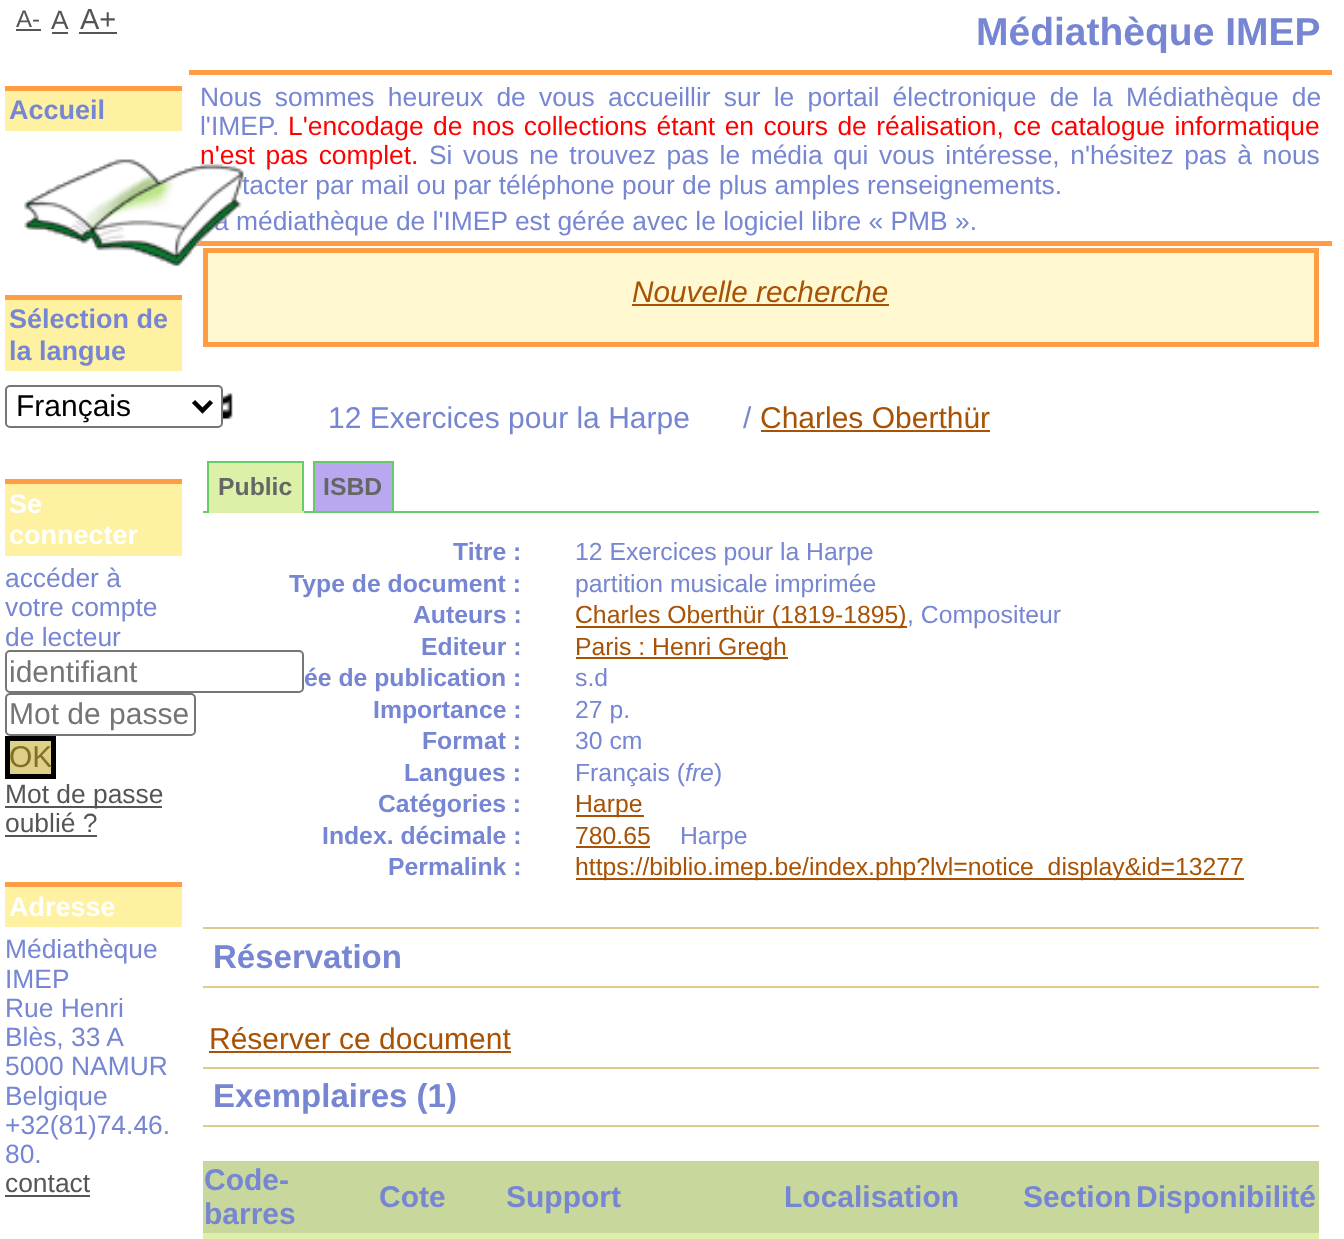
<svg xmlns="http://www.w3.org/2000/svg" width="1344" height="1239">
	<rect width="100%" height="100%" fill="#FFFFFF" />
	<text x="16" y="27" font-family="Liberation Sans" font-size="24" fill="#555555">A-</text>
	<rect x="16" y="29" width="25" height="2" fill="#555555" />
	<text x="51" y="29" font-family="Liberation Sans" font-size="26.4" fill="#555555">A</text>
	<rect x="52" y="32" width="16" height="2" fill="#555555" />
	<text x="80" y="29" font-family="Liberation Sans" font-size="29" fill="#555555">A+</text>
	<rect x="79" y="32" width="38" height="2" fill="#555555" />
	<rect x="5" y="91" width="177" height="40" fill="#FFF1A2" />
	<rect x="5" y="86" width="177" height="5" fill="#FE9D43" />
	<text x="9" y="119" font-family="Liberation Sans" font-size="27" font-weight="700" fill="#7686D2">Accueil</text>
	<rect x="189" y="241" width="1143" height="5" fill="#FE9D43" />
	<text x="200" y="164" word-spacing="3.25" font-family="Liberation Sans" font-size="26.4" fill="#FF0000">n'est pas complet.</text>
	<g font-family="Liberation Sans" font-size="26.4" fill="#7686D2">
		<text x="242" y="194">tacter par mail ou par téléphone pour de plus amples renseignements.</text>
		<text x="214" y="230">a médiathèque de l'IMEP est gérée avec le logiciel libre « PMB ».</text>
	</g>
	<rect x="205.5" y="250.5" width="1111" height="94" fill="#FFF8D1" stroke="#FE9D43" stroke-width="5" />
	<image x="24" y="159" width="220" height="108" href="assets/img1.png" />
	<rect x="5" y="300" width="177" height="71" fill="#FFF1A2" />
	<rect x="5" y="295" width="177" height="5" fill="#FE9D43" />
	<g font-family="Liberation Sans" font-size="27" font-weight="700" fill="#7686D2">
		<text x="9" y="328">Sélection de</text>
		<text x="9" y="360">la langue</text>
	</g>
	<rect x="6" y="386" width="216" height="41" rx="4" fill="none" stroke="#767676" stroke-width="2" />
	<path d="M193.5 401.5L202.5 410.5L211.5 401.5" fill="none" stroke="#000000" stroke-width="4.5" />
	<text x="16" y="416" font-family="Liberation Sans" font-size="30" fill="#000000">Français</text>
	<rect x="5" y="484" width="177" height="72" fill="#FFF1A2" />
	<rect x="5" y="479" width="177" height="5" fill="#FE9D43" />
	<g font-family="Liberation Sans" font-size="27" font-weight="700" fill="#FFFFFF">
		<text x="9" y="513">Se</text>
		<text x="9" y="544">connecter</text>
	</g>
	<g font-family="Liberation Sans" font-size="26.4" fill="#7686D2">
		<text x="5" y="587">accéder à</text>
		<text x="5" y="616">votre compte</text>
		<text x="5" y="646">de lecteur</text>
	</g>
	<rect x="6" y="651" width="297" height="41" rx="4" fill="none" stroke="#767676" stroke-width="2" />
	<text x="9" y="682" font-family="Liberation Sans" font-size="30" fill="#757575">identifiant</text>
	<rect x="6" y="694" width="189" height="41" rx="4" fill="none" stroke="#767676" stroke-width="2" />
	<text x="9" y="724" font-family="Liberation Sans" font-size="30" fill="#757575">Mot de passe</text>
	<rect x="7.5" y="738.5" width="46" height="38" fill="#DFD087" stroke="#000000" stroke-width="5" />
	<text x="9" y="767" font-family="Liberation Sans" font-size="30" fill="#7F7027">OK</text>
	<rect x="5" y="806" width="157" height="2" fill="#555555" />
	<g font-family="Liberation Sans" font-size="26.4" fill="#555555">
		<text x="5" y="803">Mot de passe</text>
		<text x="5" y="832">oublié ?</text>
	</g>
	<rect x="5" y="835" width="92" height="2" fill="#555555" />
	<rect x="5" y="887" width="177" height="40" fill="#FFF1A2" />
	<rect x="5" y="882" width="177" height="5" fill="#FE9D43" />
	<text x="9" y="916" font-family="Liberation Sans" font-size="27" font-weight="700" fill="#FFFFFF">Adresse</text>
	<g font-family="Liberation Sans" font-size="26.4" fill="#7686D2">
		<text x="5" y="958">Médiathèque</text>
		<text x="5" y="988">IMEP</text>
		<text x="5" y="1017">Rue Henri</text>
		<text x="5" y="1046">Blès, 33 A</text>
		<text x="5" y="1075">5000 NAMUR</text>
		<text x="5" y="1105">Belgique</text>
		<text x="5" y="1134">+32(81)74.46.</text>
		<text x="5" y="1163">80.</text>
	</g>
	<text x="5" y="1192" font-family="Liberation Sans" font-size="26.4" fill="#555555">contact</text>
	<rect x="5" y="1195" width="85" height="2" fill="#555555" />
	<rect x="189" y="70" width="1143" height="5" fill="#FE9D43" />
	<text x="976" y="45" font-family="Liberation Sans" font-size="39" font-weight="700" fill="#7686D2">Médiathèque IMEP</text>
	<g font-family="Liberation Sans" font-size="26.4" fill="#7686D2">
		<text x="200" y="106" word-spacing="5.9">Nous sommes heureux de vous accueillir sur le portail électronique de la Médiathèque de</text>
		<text x="200" y="135">l'IMEP.</text>
	</g>
	<text x="288" y="135" word-spacing="2.1" font-family="Liberation Sans" font-size="26.4" fill="#FF0000">L'encodage de nos collections étant en cours de réalisation, ce catalogue informatique</text>
	<text x="429" y="164" word-spacing="3.25" font-family="Liberation Sans" font-size="26.4" fill="#7686D2">Si vous ne trouvez pas le média qui vous intéresse, n'hésitez pas à nous</text>
	<text x="632" y="302" font-family="Liberation Sans" font-size="29.75" font-style="italic" fill="#A75204">Nouvelle recherche</text>
	<rect x="632" y="304" width="257" height="2" fill="#A75204" />
	<image x="223" y="393" width="10" height="27" href="assets/img2.png" />
	<g font-family="Liberation Sans" font-size="30" fill="#7686D2">
		<text x="328" y="428">12 Exercices pour la Harpe</text>
		<text x="743" y="428">/</text>
	</g>
	<text x="760" y="428" font-family="Liberation Sans" font-size="30" fill="#A75204">Charles Oberthür</text>
	<rect x="761" y="430" width="229" height="2" fill="#A75204" />
	<rect x="203" y="511" width="1116" height="2" fill="#66CC66" />
	<rect x="209" y="463" width="93" height="48" fill="#DDF0A7" />
	<rect x="207" y="461" width="97" height="2" fill="#66CC66" />
	<rect x="302" y="461" width="2" height="52" fill="#66CC66" />
	<rect x="207" y="511" width="97" height="2" fill="#DDF0A7" />
	<rect x="207" y="461" width="2" height="52" fill="#66CC66" />
	<text x="218" y="495" font-family="Liberation Sans" font-size="24.75" font-weight="700" fill="#666666">Public</text>
	<rect x="314" y="462" width="79" height="50" fill="#B9A8F0" stroke="#66CC66" stroke-width="2" />
	<text x="323" y="495" font-family="Liberation Sans" font-size="24.75" font-weight="700" fill="#666666">ISBD</text>
	<text x="453" y="560" font-family="Liberation Sans" font-size="24.75" font-weight="700" fill="#7686D2">Titre :</text>
	<text x="575" y="560" font-family="Liberation Sans" font-size="24.75" fill="#7686D2">12 Exercices pour la Harpe</text>
	<text x="289" y="592" font-family="Liberation Sans" font-size="24.75" font-weight="700" fill="#7686D2">Type de document :</text>
	<text x="575" y="592" font-family="Liberation Sans" font-size="24.75" fill="#7686D2">partition musicale imprimée</text>
	<text x="413" y="623" font-family="Liberation Sans" font-size="24.75" font-weight="700" fill="#7686D2">Auteurs :</text>
	<rect x="576" y="626" width="331" height="2" fill="#A75204" />
	<text x="575" y="623" font-family="Liberation Sans" font-size="24.75" fill="#A75204">Charles Oberthür (1819-1895)</text>
	<text x="907" y="623" font-family="Liberation Sans" font-size="24.75" fill="#7686D2">, Compositeur</text>
	<text x="421" y="655" font-family="Liberation Sans" font-size="24.75" font-weight="700" fill="#7686D2">Editeur :</text>
	<rect x="576" y="657" width="212" height="2" fill="#A75204" />
	<text x="575" y="655" font-family="Liberation Sans" font-size="24.75" fill="#A75204">Paris : Henri Gregh</text>
	<text x="304" y="686" font-family="Liberation Sans" font-size="24.75" font-weight="700" fill="#7686D2">ée de publication :</text>
	<text x="575" y="686" font-family="Liberation Sans" font-size="24.75" fill="#7686D2">s.d</text>
	<text x="373" y="718" font-family="Liberation Sans" font-size="24.75" font-weight="700" fill="#7686D2">Importance :</text>
	<text x="575" y="718" font-family="Liberation Sans" font-size="24.75" fill="#7686D2">27 p.</text>
	<text x="422" y="749" font-family="Liberation Sans" font-size="24.75" font-weight="700" fill="#7686D2">Format :</text>
	<text x="575" y="749" font-family="Liberation Sans" font-size="24.75" fill="#7686D2">30 cm</text>
	<text x="404" y="781" font-family="Liberation Sans" font-size="24.75" font-weight="700" fill="#7686D2">Langues :</text>
	<text x="575" y="781" font-family="Liberation Sans" font-size="24.75" fill="#7686D2">Français (</text>
	<text x="685" y="781" font-family="Liberation Sans" font-size="24.75" font-style="italic" fill="#7686D2">fre</text>
	<text x="714" y="781" font-family="Liberation Sans" font-size="24.75" fill="#7686D2">)</text>
	<text x="378" y="812" font-family="Liberation Sans" font-size="24.75" font-weight="700" fill="#7686D2">Catégories :</text>
	<rect x="576" y="815" width="68" height="2" fill="#A75204" />
	<text x="575" y="812" font-family="Liberation Sans" font-size="24.75" fill="#A75204">Harpe</text>
	<text x="322" y="844" font-family="Liberation Sans" font-size="24.75" font-weight="700" fill="#7686D2">Index. décimale :</text>
	<text x="575" y="844" font-family="Liberation Sans" font-size="24.75" fill="#A75204">780.65</text>
	<rect x="576" y="846" width="74" height="2" fill="#A75204" />
	<text x="680" y="844" font-family="Liberation Sans" font-size="24.75" fill="#7686D2">Harpe</text>
	<text x="388" y="875" font-family="Liberation Sans" font-size="24.75" font-weight="700" fill="#7686D2">Permalink :</text>
	<rect x="576" y="878" width="668" height="2" fill="#A75204" />
	<text x="575" y="875" font-family="Liberation Sans" font-size="24.75" fill="#A75204">https://biblio.imep.be/index.php?lvl=notice_display&amp;id=13277</text>
	<rect x="203" y="927" width="1116" height="2" fill="#DDCB8C" />
	<rect x="203" y="986" width="1116" height="2" fill="#DDCB8C" />
	<text x="213" y="968" font-family="Liberation Sans" font-size="33" font-weight="700" fill="#7686D2">Réservation</text>
	<text x="209" y="1049" font-family="Liberation Sans" font-size="30" fill="#A75204">Réserver ce document</text>
	<rect x="209" y="1051" width="302" height="2" fill="#A75204" />
	<rect x="203" y="1067" width="1116" height="2" fill="#DDCB8C" />
	<rect x="203" y="1125" width="1116" height="2" fill="#DDCB8C" />
	<text x="213" y="1107" font-family="Liberation Sans" font-size="33" font-weight="700" fill="#7686D2">Exemplaires (1)</text>
	<rect x="203" y="1161" width="1116" height="72" fill="#C8D79B" />
	<g font-family="Liberation Sans" font-size="30" font-weight="700" fill="#7686D2">
		<text x="204" y="1190">Code-</text>
		<text x="204" y="1224">barres</text>
		<text x="379" y="1207">Cote</text>
		<text x="506" y="1207">Support</text>
		<text x="784" y="1207">Localisation</text>
		<text x="1023" y="1207">Section</text>
		<text x="1136" y="1207">Disponibilité</text>
	</g>
	<rect x="203" y="1233" width="1116" height="6" fill="#DDF0A7" />
</svg>
